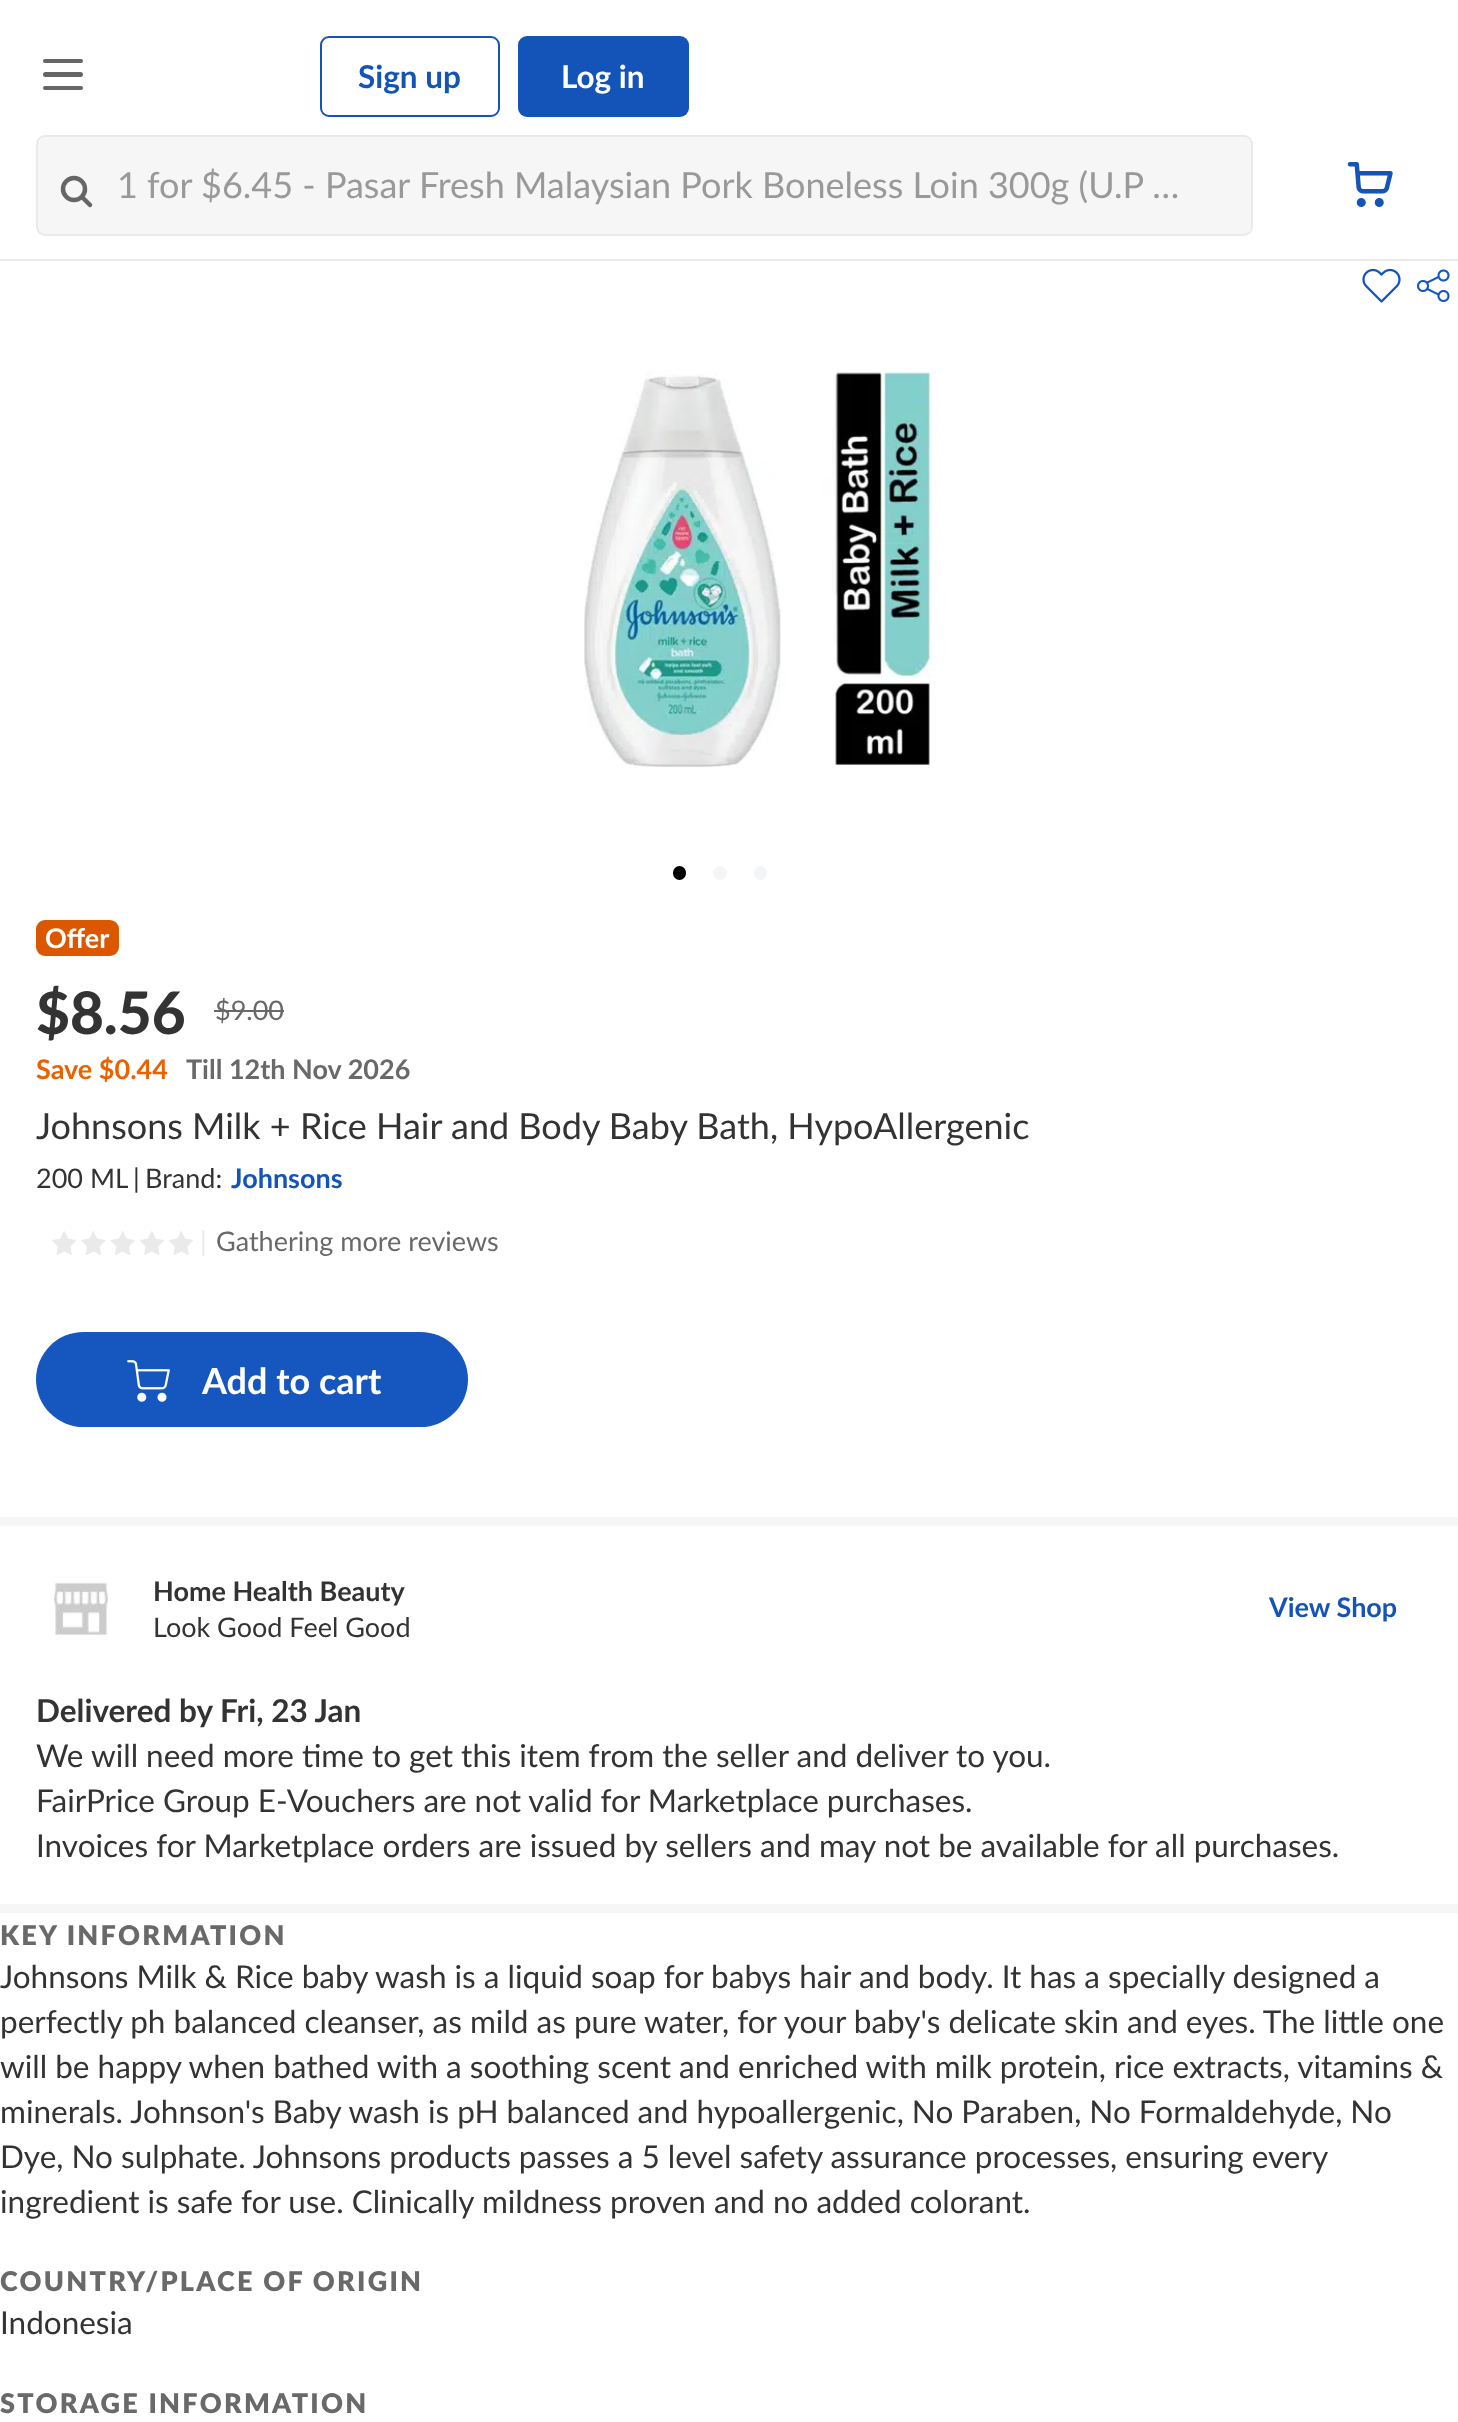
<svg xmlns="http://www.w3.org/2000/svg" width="1458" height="2422">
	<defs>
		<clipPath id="clip1"><rect x="36" y="1161" width="92" height="36" /></clipPath>
	</defs>
	<rect width="100%" height="100%" fill="#F6F6F6" />
	<rect x="0" y="0" width="1458" height="259" fill="#FFFFFF" />
	<rect x="0" y="259" width="1458" height="2" fill="#EAEAEA" />
	<rect x="43" y="59" width="40" height="4" rx="2" fill="#666666" />
	<rect x="43" y="72" width="40" height="5" rx="2.5" fill="#666666" />
	<rect x="43" y="86" width="40" height="4" rx="2" fill="#666666" />
	<rect x="321" y="37" width="178" height="79" rx="8" fill="none" stroke="#1454B8" stroke-width="2" />
	<text x="358" y="88" font-family="Lato" font-size="31.5" font-weight="700" fill="#1454B8">Sign up</text>
	<rect x="518" y="36" width="171" height="81" rx="9" fill="#1454B8" />
	<text x="561" y="88" font-family="Lato" font-size="31.5" font-weight="700" fill="#FFFFFF">Log in</text>
	<rect x="37" y="136" width="1215" height="99" rx="8" fill="#F6F6F6" stroke="#EAEAEA" stroke-width="2" />
	<circle cx="74" cy="189" r="11" fill="none" stroke="#666666" stroke-width="4.5" />
	<path d="M90 205L83 198" fill="none" stroke="#666666" stroke-width="4.5" stroke-linecap="round" stroke-linejoin="round" />
	<text x="117" y="198" font-family="Lato" font-size="36" fill="#999999">1 for $6.45 - Pasar Fresh Malaysian Pork Boneless Loin 300g (U.P …</text>
	<image x="1347" y="162" width="46" height="45" href="assets/img1.png" />
	<rect x="0" y="261" width="1458" height="1256" fill="#FFFFFF" />
	<image x="1362" y="268" width="39" height="35" href="assets/img2.png" />
	<image x="1417" y="269" width="33" height="34" href="assets/img3.png" />
	<image x="584" y="370" width="352" height="398" href="assets/img4.png" />
	<rect x="673" y="866" width="13" height="14" rx="6.5" fill="#000000" />
	<circle cx="720" cy="873" r="7" fill="#F3F5F7" />
	<rect x="754" y="866" width="13" height="14" rx="6.5" fill="#F3F5F7" />
	<rect x="36" y="920" width="83" height="36" rx="9" fill="#DB5800" />
	<text x="45" y="948" font-family="Lato" font-size="27" font-weight="700" fill="#FFFFFF">Offer</text>
	<text x="36" y="1034" font-family="Lato" font-size="58.5" font-weight="900" fill="#333333">$8.56</text>
	<text x="215" y="1020" font-family="Lato" font-size="27" fill="#696969">$9.00</text>
	<rect x="214" y="1010" width="70" height="2" fill="#696969" />
	<text x="36" y="1079" font-family="Lato" font-size="27" font-weight="700" fill="#EA6100">Save $0.44</text>
	<text x="186" y="1079" font-family="Lato" font-size="27" font-weight="700" fill="#696969">Till 12th Nov 2026</text>
	<text x="36" y="1139" font-family="Lato" font-size="36" fill="#333333">Johnsons Milk + Rice Hair and Body Baby Bath, HypoAllergenic</text>
	<g clip-path="url(#clip1)">
		<text x="36" y="1188" font-family="Lato" font-size="27" fill="#333333">200 ML</text>
	</g>
	<g font-family="Lato" font-size="27" fill="#333333">
		<text x="133" y="1188">|</text>
		<text x="145" y="1188">Brand:</text>
	</g>
	<text x="231" y="1188" font-family="Lato" font-size="27" font-weight="700" fill="#1454B8">Johnsons</text>
	<image x="52" y="1231" width="24" height="24" href="assets/img5.png" />
	<image x="81" y="1231" width="25" height="24" href="assets/img6.png" />
	<image x="110" y="1231" width="25" height="24" href="assets/img7.png" />
	<image x="140" y="1231" width="24" height="24" href="assets/img8.png" />
	<image x="169" y="1231" width="24" height="24" href="assets/img5.png" />
	<text x="200" y="1251" font-family="Lato" font-size="27" fill="#EAEAEA">|</text>
	<text x="216" y="1251" font-family="Lato" font-size="27" fill="#696969">Gathering more reviews</text>
	<rect x="36" y="1332" width="432" height="95" rx="47.5" fill="#1557BF" />
	<image x="127" y="1360" width="43" height="42" href="assets/img9.png" />
	<text x="202" y="1394" font-family="Lato" font-size="36" font-weight="700" fill="#FFFFFF">Add to cart</text>
	<rect x="0" y="1526" width="1458" height="378" fill="#FFFFFF" />
	<image x="54" y="1582" width="54" height="58" href="assets/img10.png" />
	<text x="153" y="1601" font-family="Lato" font-size="27" font-weight="700" fill="#333333">Home Health Beauty</text>
	<text x="153" y="1637" font-family="Lato" font-size="27" fill="#333333">Look Good Feel Good</text>
	<text x="1269" y="1617" font-family="Lato" font-size="27" font-weight="700" fill="#1454B8">View Shop</text>
	<text x="36" y="1722" font-family="Lato" font-size="31.5" font-weight="700" fill="#333333">Delivered by Fri, 23 Jan</text>
	<g font-family="Lato" font-size="31.5" fill="#333333">
		<text x="36" y="1767">We will need more time to get this item from the seller and deliver to you.</text>
		<text x="36" y="1812">FairPrice Group E-Vouchers are not valid for Marketplace purchases.</text>
		<text x="36" y="1857">Invoices for Marketplace orders are issued by sellers and may not be available for all purchases.</text>
	</g>
	<rect x="0" y="1913" width="1458" height="509" fill="#FFFFFF" />
	<text x="0" y="1945" font-family="'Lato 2'" font-size="27" font-weight="900" letter-spacing="2.25" fill="#696969">KEY INFORMATION</text>
	<g font-family="Lato" font-size="31.5" fill="#333333">
		<text x="0" y="1988">Johnsons Milk &amp; Rice baby wash is a liquid soap for babys hair and body. It has a specially designed a</text>
		<text x="0" y="2033">perfectly ph balanced cleanser, as mild as pure water, for your baby's delicate skin and eyes. The little one</text>
		<text x="0" y="2078">will be happy when bathed with a soothing scent and enriched with milk protein, rice extracts, vitamins &amp;</text>
		<text x="0" y="2123">minerals. Johnson's Baby wash is pH balanced and hypoallergenic, No Paraben, No Formaldehyde, No</text>
		<text x="0" y="2168">Dye, No sulphate. Johnsons products passes a 5 level safety assurance processes, ensuring every</text>
		<text x="0" y="2213">ingredient is safe for use. Clinically mildness proven and no added colorant.</text>
	</g>
	<text x="0" y="2291" font-family="'Lato 2'" font-size="27" font-weight="900" letter-spacing="2.25" fill="#696969">COUNTRY/PLACE OF ORIGIN</text>
	<text x="0" y="2334" font-family="Lato" font-size="31.5" fill="#333333">Indonesia</text>
	<text x="0" y="2413" font-family="'Lato 2'" font-size="27" font-weight="900" letter-spacing="2.25" fill="#696969">STORAGE INFORMATION</text>
</svg>
